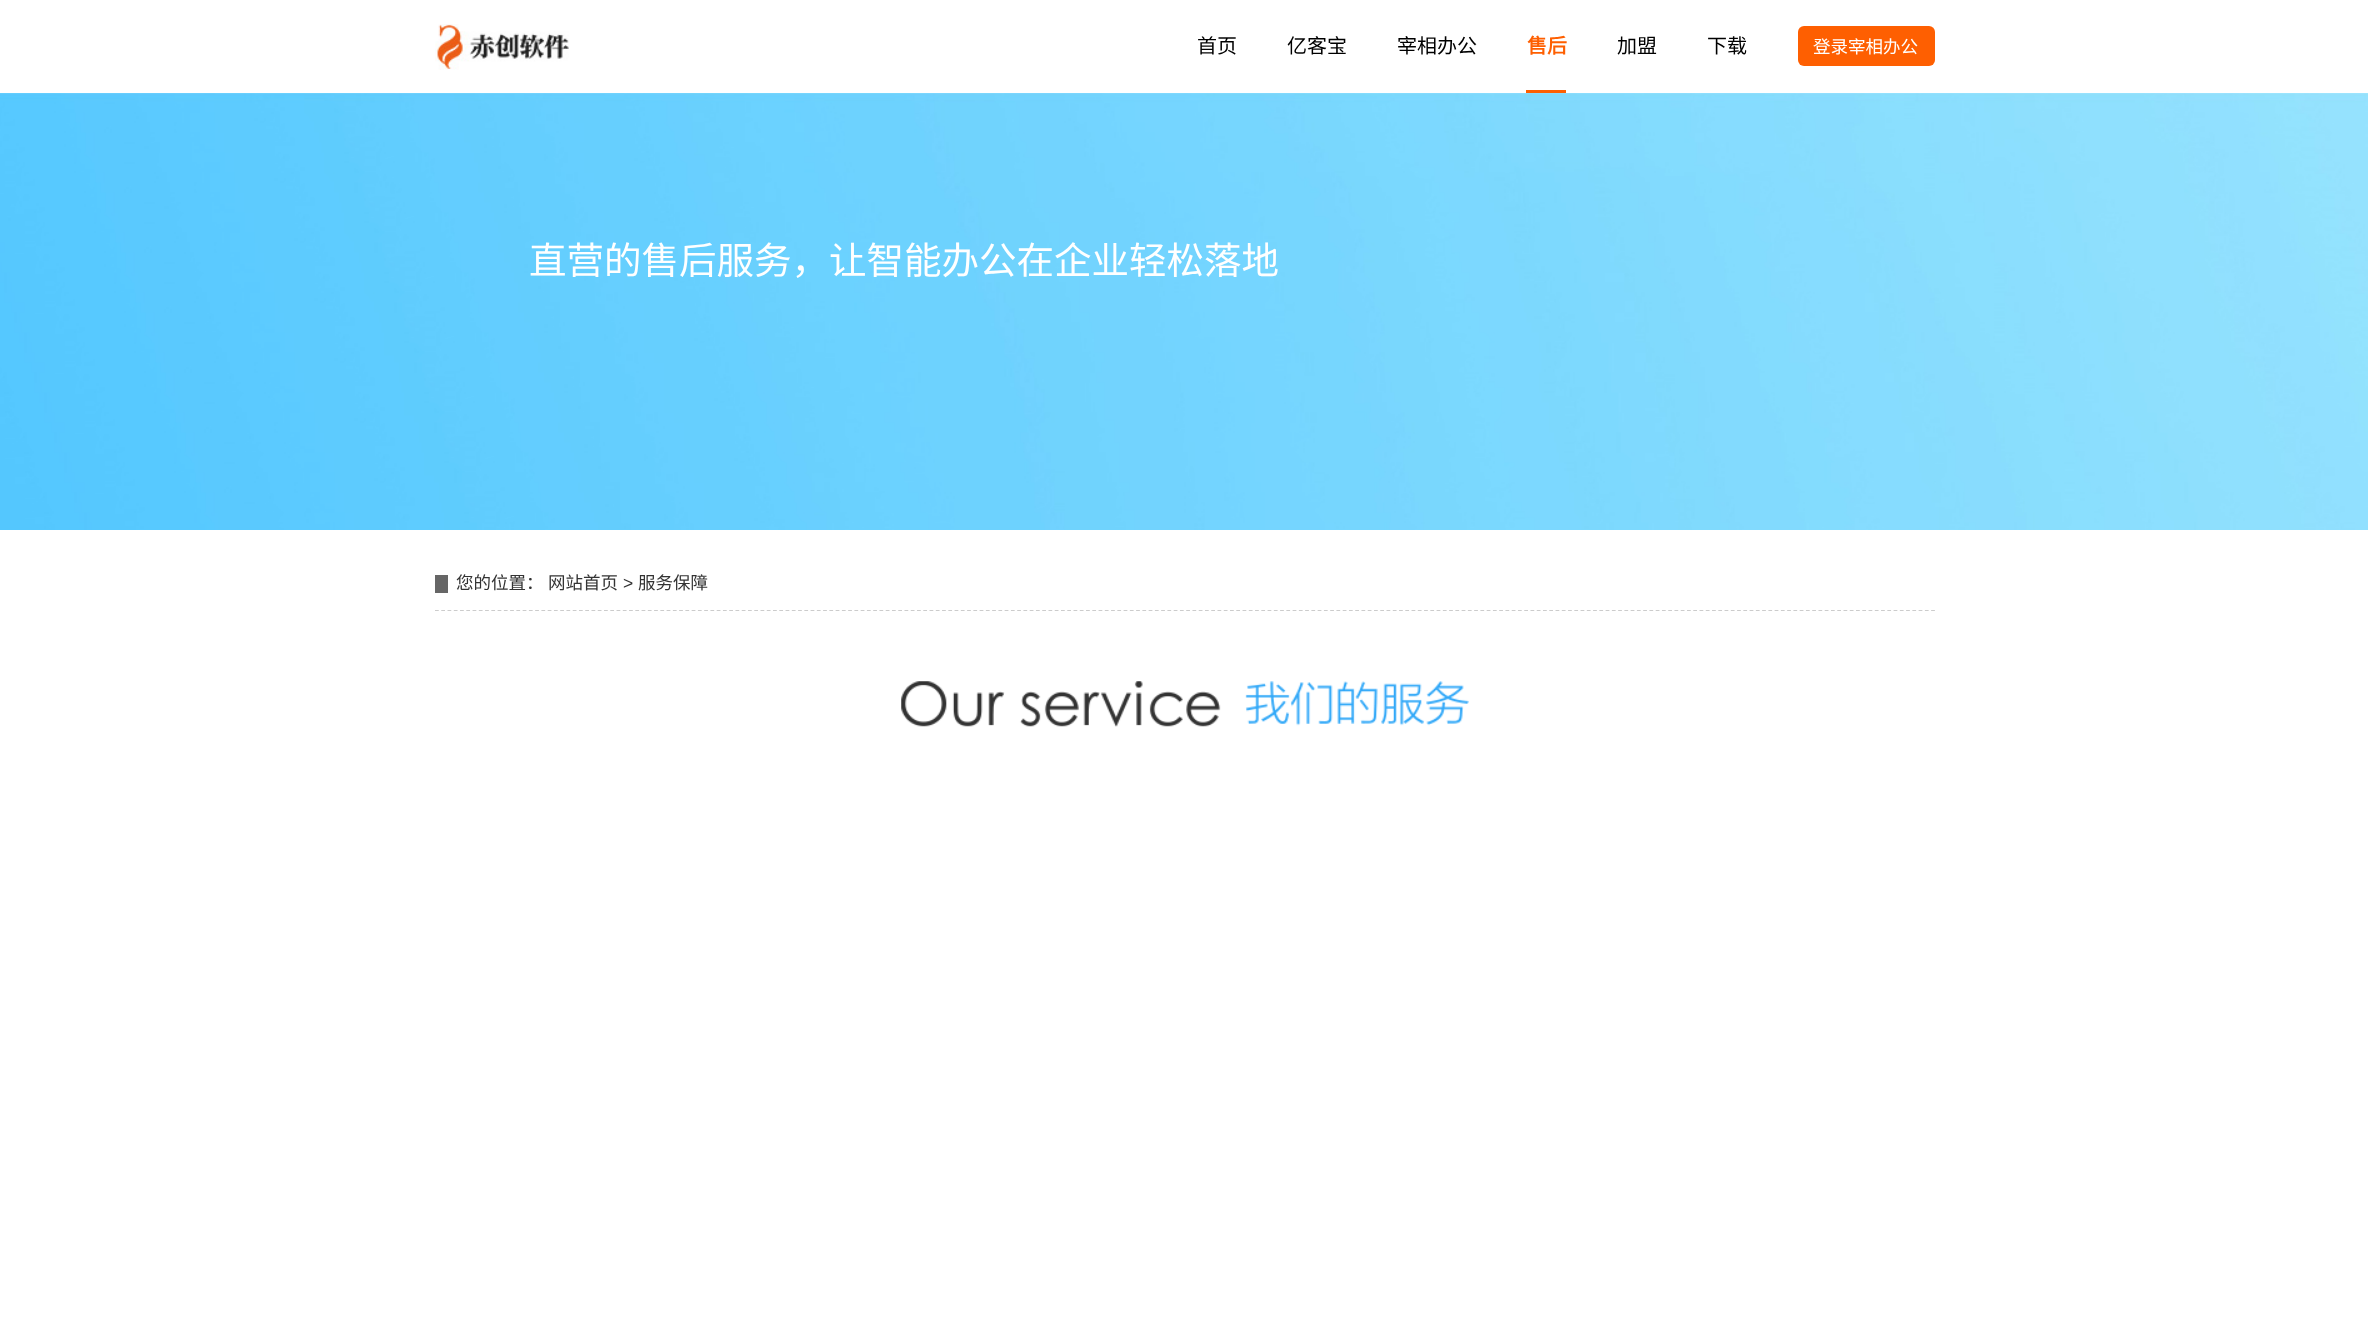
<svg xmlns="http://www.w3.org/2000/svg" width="2368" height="1318">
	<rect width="100%" height="100%" fill="#FFFFFF" />
	<image x="435" y="24" width="134" height="46" href="assets/img1.png" />
	<g font-family="Noto Sans CJK SC" font-size="20" fill="#000000">
		<text x="1197" y="53">首页</text>
		<text x="1287" y="53">亿客宝</text>
		<text x="1397" y="53">宰相办公</text>
	</g>
	<rect x="1526" y="90" width="40" height="3" fill="#FE5F01" />
	<text x="1527" y="53" font-family="Noto Sans CJK SC" font-size="20" font-weight="700" fill="#FE5F01">售后</text>
	<g font-family="Noto Sans CJK SC" font-size="20" fill="#000000">
		<text x="1617" y="53">加盟</text>
		<text x="1707" y="53">下载</text>
	</g>
	<rect x="1798" y="26" width="137" height="40" rx="6" fill="#FE5F01" />
	<text x="1813" y="53" font-family="Noto Sans CJK SC" font-size="17.5" fill="#FFFFFF">登录宰相办公</text>
	<image x="0" y="93" width="2368" height="437" href="assets/img2.png" />
	<text x="529" y="274" font-family="Noto Sans CJK SC" font-size="37.5" fill="#FFFFFF">直营的售后服务，让智能办公在企业轻松落地</text>
	<path d="M435 610.5H1935" fill="none" stroke="#CCCCCC" stroke-width="1.2" stroke-dasharray="3.75 2.51" />
	<rect x="435" y="575" width="13" height="18" fill="#666666" />
	<g font-family="Noto Sans CJK SC" font-size="17.5" fill="#333333">
		<text x="456" y="589">您的位置：</text>
		<text x="548" y="589">网站首页</text>
	</g>
	<text x="623" y="589" font-family="Liberation Sans" font-size="17.5" fill="#333333">&gt;</text>
	<text x="638" y="589" font-family="Noto Sans CJK SC" font-size="17.5" fill="#333333">服务保障</text>
	<image x="901" y="681" width="568" height="46" href="assets/img3.png" />
</svg>
